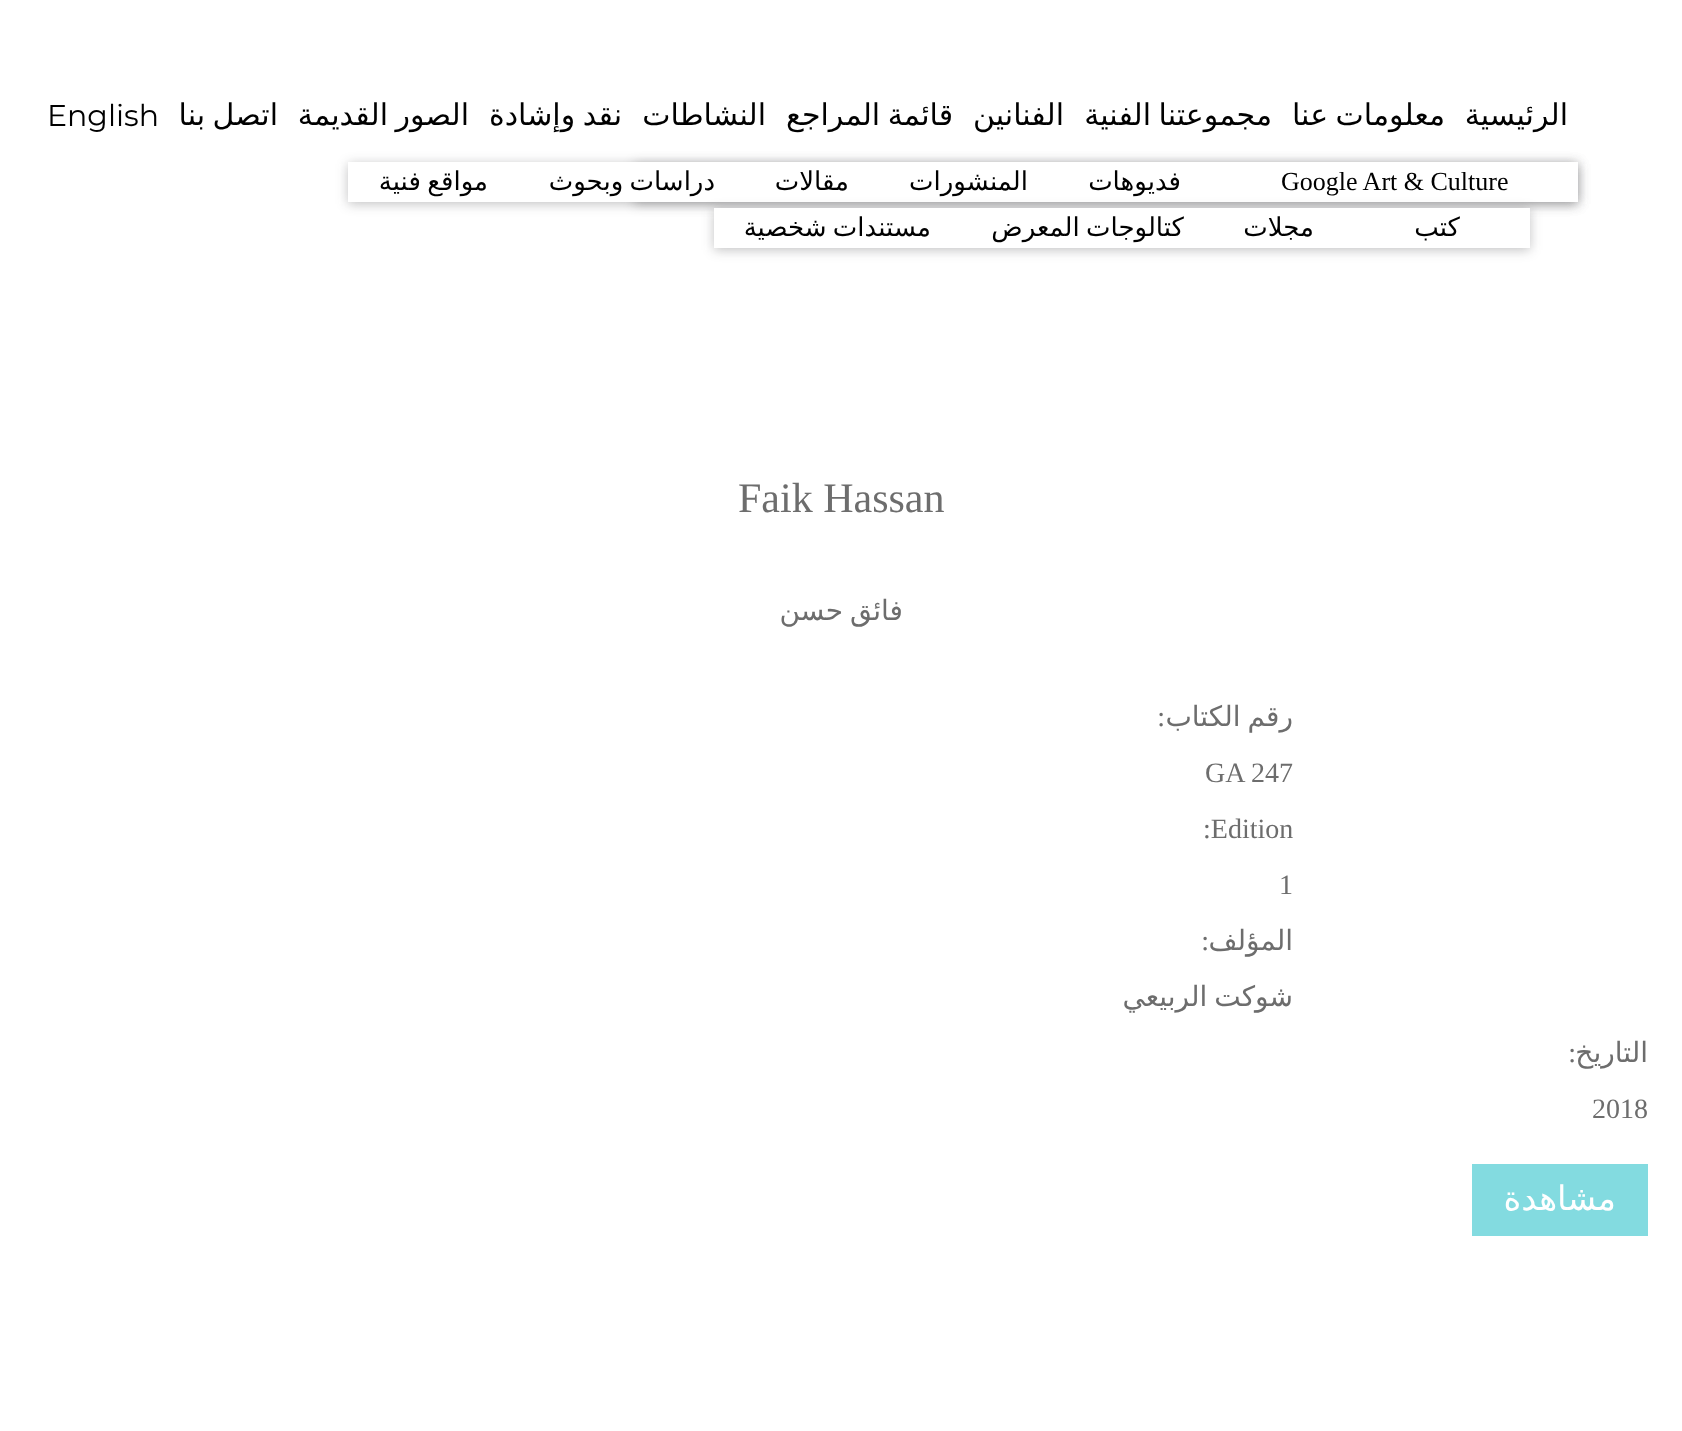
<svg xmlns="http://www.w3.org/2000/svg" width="1682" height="1431">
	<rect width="100%" height="100%" fill="#FFFFFF" />
	<g font-family="DejaVu Sans" font-size="30" direction="rtl" fill="#000000">
		<text x="469" y="125" word-spacing="-2">الصور القديمة</text>
		<text x="278" y="125" word-spacing="-2">اتصل بنا</text>
		<text x="953" y="125" word-spacing="-2">قائمة المراجع</text>
	</g>
	<rect x="348" y="164" width="1230" height="40" fill="#202124" fill-opacity="0.28" filter="blur(6px)" />
	<rect x="634" y="164" width="944" height="40" fill="#202124" fill-opacity="0.28" filter="blur(6px)" />
	<rect x="348" y="162" width="1230" height="40" fill="#FFFFFF" />
	<text x="1028" y="190" font-family="DejaVu Sans" font-size="26" direction="rtl" fill="#000000">المنشورات</text>
	<rect x="714" y="210" width="816" height="40" fill="#202124" fill-opacity="0.28" filter="blur(6px)" />
	<rect x="714" y="208" width="816" height="40" fill="#FFFFFF" />
	<g font-family="DejaVu Sans" font-size="26" direction="rtl" fill="#000000">
		<text x="1460" y="236">كتب</text>
		<text x="1314" y="236">مجلات</text>
		<text x="1184" y="236" word-spacing="-2">كتالوجات المعرض</text>
		<text x="931" y="236" word-spacing="-2">مستندات شخصية</text>
		<text x="715" y="190" word-spacing="-2">دراسات وبحوث</text>
		<text x="488" y="190" word-spacing="-2">مواقع فنية</text>
	</g>
	<text x="1281" y="190" font-family="Liberation Serif" font-size="26" fill="#000000">Google Art &amp; Culture</text>
	<g font-family="DejaVu Sans" font-size="26" direction="rtl" fill="#000000">
		<text x="1181" y="190">فديوهات</text>
		<text x="849" y="190">مقالات</text>
	</g>
	<g font-family="DejaVu Sans" font-size="30" direction="rtl" fill="#000000">
		<text x="1568" y="125">الرئيسية</text>
		<text x="1445" y="125" word-spacing="-2">معلومات عنا</text>
		<text x="1272" y="125" word-spacing="-2">مجموعتنا الفنية</text>
		<text x="1064" y="125">الفنانين</text>
		<text x="766" y="125">النشاطات</text>
		<text x="622" y="125" word-spacing="-2">نقد وإشادة</text>
	</g>
	<text x="47" y="126" font-family="Montserrat" font-size="30" fill="#000000">English</text>
	<text x="738" y="512" font-family="Liberation Serif" font-size="42" fill="#6D6D6D">Faik Hassan</text>
	<g font-family="DejaVu Sans" font-size="28" direction="rtl" fill="#6D6D6D">
		<text x="903" y="620" word-spacing="-2">فائق حسن</text>
		<text x="1293" y="726" word-spacing="-2">رقم الكتاب</text>
	</g>
	<text x="1165" y="726" font-family="Liberation Serif" font-size="28" direction="rtl" fill="#6D6D6D">:</text>
	<g font-family="Liberation Serif" font-size="28" fill="#6D6D6D">
		<text x="1205" y="782">GA 247</text>
		<text x="1203" y="838">:Edition</text>
		<text x="1279" y="894">1</text>
	</g>
	<text x="1293" y="950" font-family="DejaVu Sans" font-size="28" direction="rtl" fill="#6D6D6D">المؤلف</text>
	<text x="1209" y="950" font-family="Liberation Serif" font-size="28" direction="rtl" fill="#6D6D6D">:</text>
	<g font-family="DejaVu Sans" font-size="28" direction="rtl" fill="#6D6D6D">
		<text x="1293" y="1006" word-spacing="-2">شوكت الربيعي</text>
		<text x="1648" y="1062">التاريخ</text>
	</g>
	<text x="1576" y="1062" font-family="Liberation Serif" font-size="28" direction="rtl" fill="#6D6D6D">:</text>
	<text x="1592" y="1118" font-family="Liberation Serif" font-size="28" fill="#6D6D6D">2018</text>
	<rect x="1472" y="1164" width="176" height="72" fill="#83DBE0" />
	<text x="1616" y="1210" font-family="DejaVu Sans" font-size="34" direction="rtl" fill="#FFFFFF">مشاهدة</text>
</svg>
